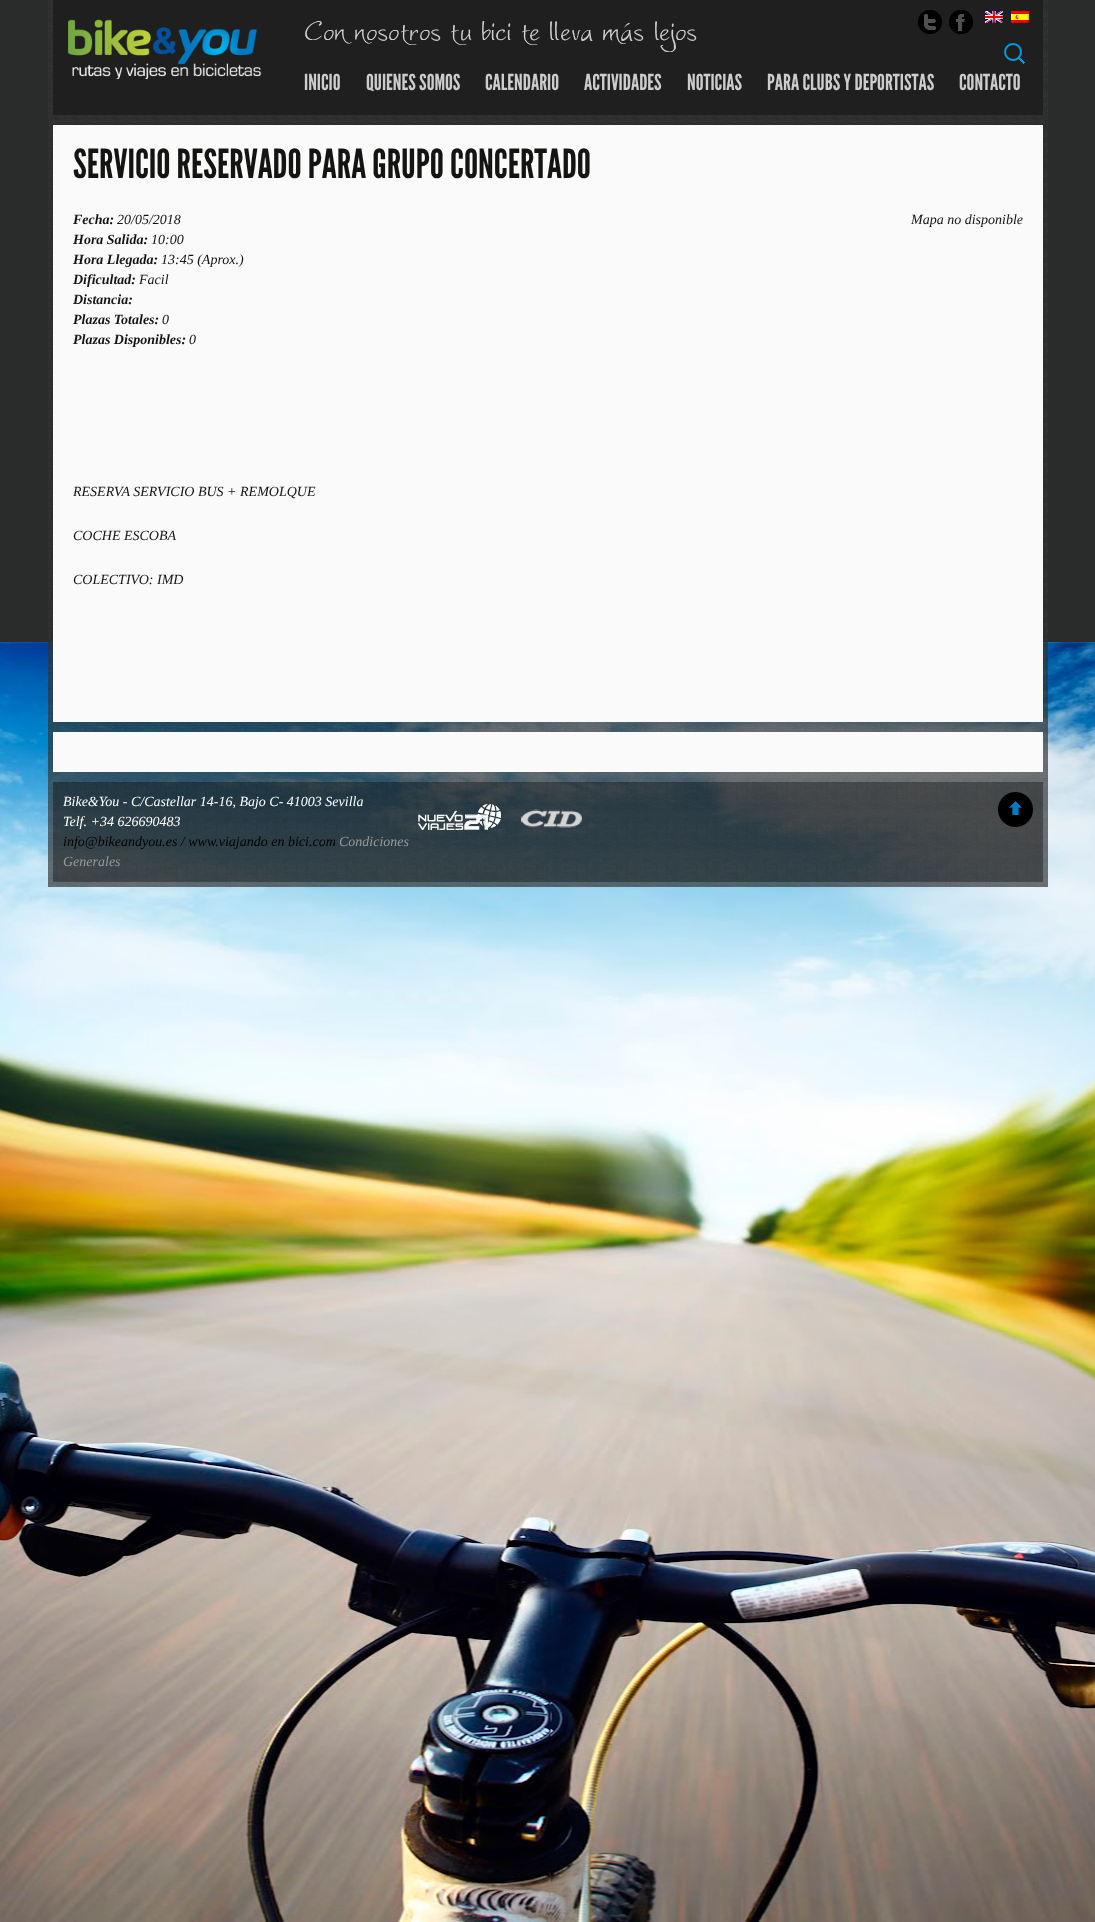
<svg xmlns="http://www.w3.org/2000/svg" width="1095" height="1922">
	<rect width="100%" height="100%" fill="#2A2B2B" />
	<image x="0" y="642" width="1095" height="1280" href="assets/img1.png" />
	<image x="48" y="0" width="1000" height="887" href="assets/img2.png" />
	<rect x="53" y="0" width="990" height="115" fill="#1F1F1F" />
	<image x="68" y="19" width="194" height="60" href="assets/img3.png" />
	<image x="305" y="21" width="392" height="31" href="assets/img4.png" />
	<image x="918" y="10" width="24" height="24" href="assets/img5.png" />
	<image x="949" y="10" width="24" height="24" href="assets/img6.png" />
	<image x="985" y="11" width="18" height="12" href="assets/img7.png" />
	<image x="1011" y="11" width="18" height="12" href="assets/img8.png" />
	<image x="1004" y="43" width="21" height="21" href="assets/img9.png" />
	<g font-family="League Gothic" font-size="22" fill="#CCCCCC">
		<text x="304" y="90">INICIO</text>
		<text x="366" y="90">QUIENES SOMOS</text>
		<text x="485" y="90">CALENDARIO</text>
		<text x="584" y="90">ACTIVIDADES</text>
		<text x="687" y="90">NOTICIAS</text>
		<text x="767" y="90">PARA CLUBS Y DEPORTISTAS</text>
		<text x="959" y="90">CONTACTO</text>
	</g>
	<rect x="53" y="125" width="990" height="597" fill="#FAFAFA" />
	<text x="73" y="178" font-family="League Gothic" font-size="40" fill="#141412">SERVICIO RESERVADO PARA GRUPO CONCERTADO</text>
	<text x="73" y="224" font-family="Liberation Serif" font-size="14" font-weight="700" font-style="italic" fill="#141412">Fecha:</text>
	<text x="117" y="224" font-family="Liberation Serif" font-size="14" font-style="italic" fill="#141412">20/05/2018</text>
	<text x="73" y="244" font-family="Liberation Serif" font-size="14" font-weight="700" font-style="italic" fill="#141412">Hora Salida:</text>
	<text x="151" y="244" font-family="Liberation Serif" font-size="14" font-style="italic" fill="#141412">10:00</text>
	<text x="73" y="264" font-family="Liberation Serif" font-size="14" font-weight="700" font-style="italic" fill="#141412">Hora Llegada:</text>
	<text x="161" y="264" font-family="Liberation Serif" font-size="14" font-style="italic" fill="#141412">13:45 (Aprox.)</text>
	<text x="73" y="284" font-family="Liberation Serif" font-size="14" font-weight="700" font-style="italic" fill="#141412">Dificultad:</text>
	<text x="139" y="284" font-family="Liberation Serif" font-size="14" font-style="italic" fill="#141412">Facil</text>
	<g font-family="Liberation Serif" font-size="14" font-weight="700" font-style="italic" fill="#141412">
		<text x="73" y="304">Distancia:</text>
		<text x="73" y="324">Plazas Totales:</text>
	</g>
	<text x="162" y="324" font-family="Liberation Serif" font-size="14" font-style="italic" fill="#141412">0</text>
	<text x="73" y="344" font-family="Liberation Serif" font-size="14" font-weight="700" font-style="italic" fill="#141412">Plazas Disponibles:</text>
	<g font-family="Liberation Serif" font-size="14" font-style="italic" fill="#141412">
		<text x="189" y="344">0</text>
		<text x="911" y="224">Mapa no disponible</text>
		<text x="73" y="496">RESERVA SERVICIO BUS + REMOLQUE</text>
		<text x="73" y="540">COCHE ESCOBA</text>
		<text x="73" y="584">COLECTIVO: IMD</text>
	</g>
	<rect x="53" y="732" width="990" height="40" fill="#FAFAFA" />
	<rect x="53" y="782" width="990" height="100" fill="#000000" fill-opacity="0.35" />
	<g font-family="Liberation Serif" font-size="14" font-style="italic" fill="#FFFFFF">
		<text x="63" y="806">Bike&amp;You - C/Castellar 14-16, Bajo C- 41003 Sevilla</text>
		<text x="63" y="826">Telf. +34 626690483</text>
	</g>
	<text x="63" y="846" font-family="Liberation Serif" font-size="14" font-style="italic" fill="#000000">info@bikeandyou.es / www.viajando en bici.com</text>
	<g font-family="Liberation Serif" font-size="14" font-style="italic" fill="#999999">
		<text x="339" y="846">Condiciones</text>
		<text x="63" y="866">Generales</text>
	</g>
	<image x="418" y="804" width="83" height="26" href="assets/img10.png" />
	<image x="521" y="809" width="61" height="19" href="assets/img11.png" />
	<image x="998" y="792" width="35" height="35" href="assets/img12.png" />
</svg>
